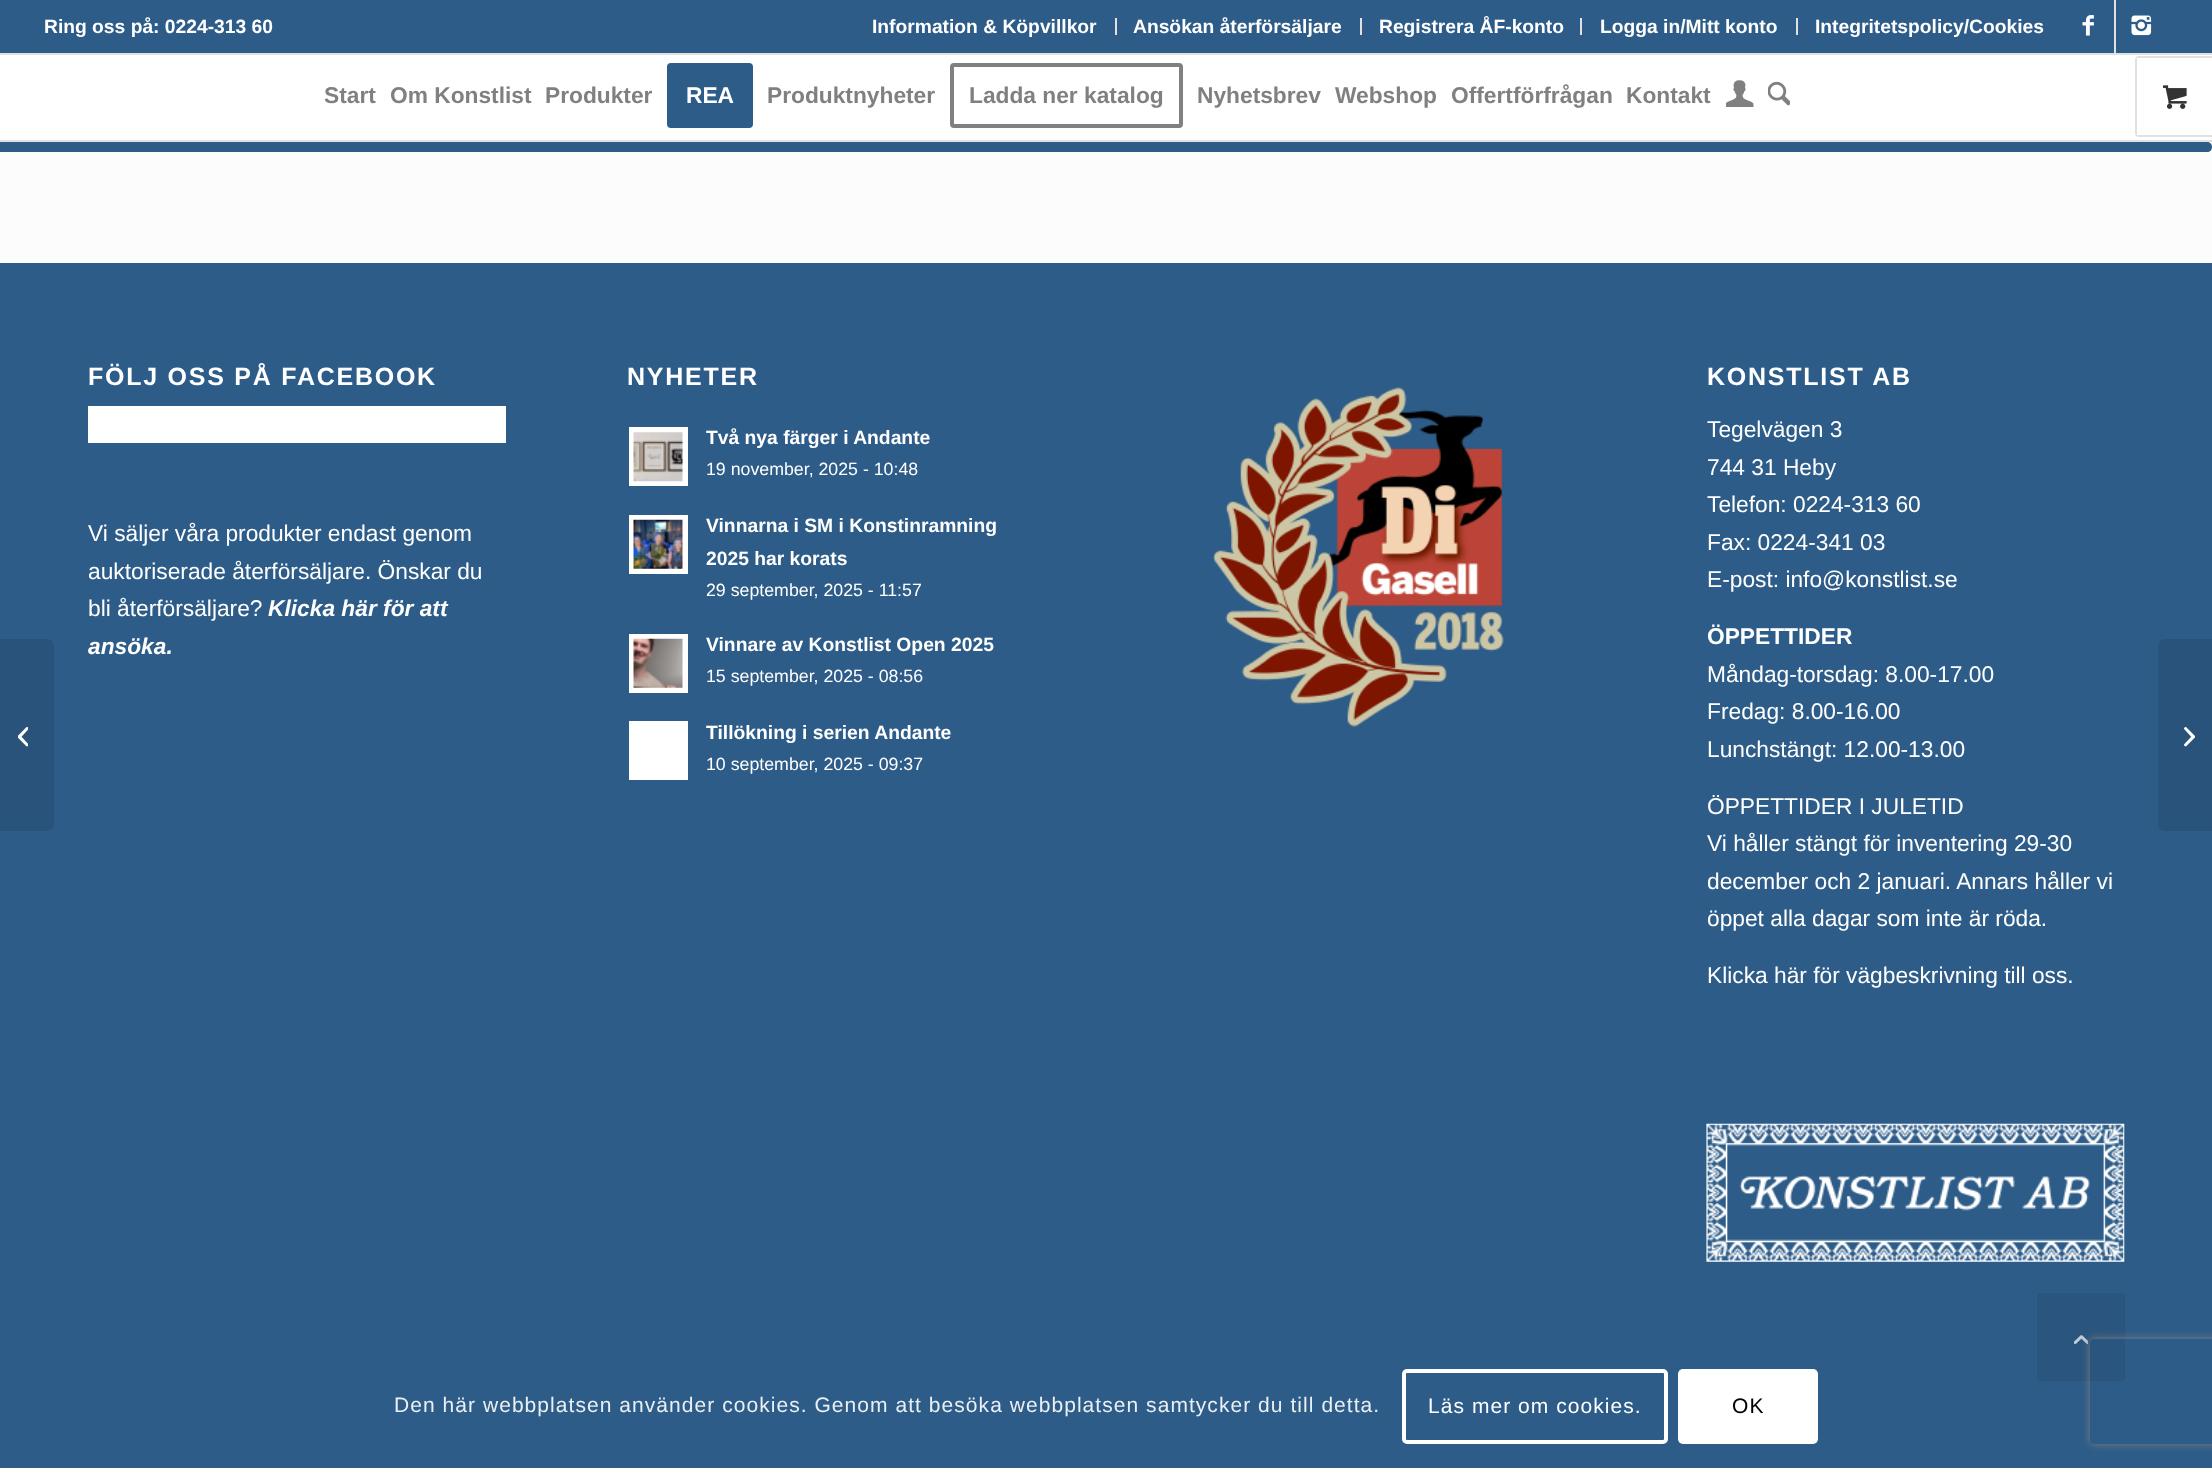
<svg xmlns="http://www.w3.org/2000/svg" width="2212" height="1468">
	<defs>
		<clipPath id="clip1"><rect x="88" y="495" width="418" height="189" /></clipPath>
		<clipPath id="clip2"><path d="M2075 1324H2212V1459H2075ZM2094 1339H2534C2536 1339 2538 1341 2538 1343V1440C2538 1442 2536 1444 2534 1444H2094C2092 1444 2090 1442 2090 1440V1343C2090 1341 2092 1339 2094 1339Z" clip-rule="evenodd" /></clipPath>
	</defs>
	<rect width="100%" height="100%" fill="#FCFCFC" />
	<rect x="0" y="0" width="2212" height="53" fill="#2D5C88" />
	<rect x="0" y="53" width="2212" height="2" fill="#E1E1E1" />
	<text x="44" y="33" font-family="Liberation Sans" font-size="19.25" font-weight="700" fill="#FFFFFF">Ring oss på: 0224-313 60</text>
	<rect x="1115" y="18" width="2" height="17" fill="#E1E1E1" />
	<text x="872" y="33" font-family="Liberation Sans" font-size="19.25" font-weight="700" fill="#FFFFFF">Information &amp; Köpvillkor</text>
	<rect x="1360" y="18" width="2" height="17" fill="#E1E1E1" />
	<text x="1133" y="33" font-family="Liberation Sans" font-size="19.25" font-weight="700" fill="#FFFFFF">Ansökan återförsäljare</text>
	<rect x="1580" y="18" width="2" height="17" fill="#E1E1E1" />
	<text x="1379" y="33" font-family="Liberation Sans" font-size="19.25" font-weight="700" fill="#FFFFFF">Registrera ÅF-konto</text>
	<rect x="1796" y="18" width="2" height="17" fill="#E1E1E1" />
	<g font-family="Liberation Sans" font-size="19.25" font-weight="700" fill="#FFFFFF">
		<text x="1600" y="33">Logga in/Mitt konto</text>
		<text x="1815" y="33">Integritetspolicy/Cookies</text>
	</g>
	<rect x="2114" y="0" width="2" height="53" fill="#E1E1E1" />
	<image x="2082" y="15" width="12" height="21" href="assets/img1.png" />
	<image x="2131" y="15" width="21" height="21" href="assets/img2.png" />
	<rect x="0" y="140" width="2212" height="2" fill="#E1E1E1" />
	<rect x="0" y="55" width="2212" height="85" fill="#FFFFFF" />
	<g font-family="Liberation Sans" font-size="22.75" font-weight="700" fill="#808080">
		<text x="324" y="103">Start</text>
		<text x="390" y="103">Om Konstlist</text>
		<text x="545" y="103">Produkter</text>
	</g>
	<rect x="669" y="65" width="82" height="61" rx="2" fill="#2D5C88" stroke="#2D5C88" stroke-width="4" />
	<text x="686" y="103" font-family="Liberation Sans" font-size="22.75" font-weight="700" fill="#FFFFFF">REA</text>
	<text x="767" y="103" font-family="Liberation Sans" font-size="22.75" font-weight="700" fill="#808080">Produktnyheter</text>
	<rect x="952" y="65" width="229" height="61" rx="2" fill="none" stroke="#808080" stroke-width="4" />
	<g font-family="Liberation Sans" font-size="22.75" font-weight="700" fill="#808080">
		<text x="969" y="103">Ladda ner katalog</text>
		<text x="1197" y="103">Nyhetsbrev</text>
		<text x="1335" y="103">Webshop</text>
		<text x="1451" y="103">Offertförfrågan</text>
		<text x="1626" y="103">Kontakt</text>
	</g>
	<image x="1726" y="80" width="28" height="27" href="assets/img3.png" />
	<image x="1768" y="81" width="22" height="25" href="assets/img4.png" />
	<rect x="2136" y="57" width="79" height="79" rx="3" fill="none" stroke="#E1E1E1" stroke-width="2" />
	<rect x="2137" y="58" width="2" height="77" fill="#FFFFFF" />
	<image x="2163" y="85" width="24" height="24" href="assets/img5.png" />
	<path d="M0 142H2207C2210 142 2212 144 2212 147C2212 150 2210 152 2207 152H0Z" fill="#2D5C88" />
	<rect x="0" y="263" width="2212" height="1205" fill="#2D5C88" />
	<path d="M0 639H47C51 639 54 642 54 646V824C54 828 51 831 47 831H0Z" fill="#29537A" />
	<image x="18" y="727" width="10" height="20" href="assets/img6.png" />
	<text x="88" y="385" font-family="Liberation Sans" font-size="25" font-weight="700" letter-spacing="1.75" fill="#FFFFFF">FÖLJ OSS PÅ FACEBOOK</text>
	<rect x="88" y="406" width="418" height="37" fill="#FFFFFF" />
	<g font-family="Liberation Sans" font-size="22.75" fill="#FFFFFF">
		<text x="88" y="541">Vi säljer våra produkter endast genom</text>
		<text x="88" y="579">auktoriserade återförsäljare. Önskar du</text>
		<text x="88" y="616">bli återförsäljare?</text>
	</g>
	<text x="268" y="616" font-family="Liberation Sans" font-size="22.75" font-weight="700" font-style="italic" fill="#FFFFFF">Klicka här för att</text>
	<g clip-path="url(#clip1)">
		<text x="88" y="654" font-family="Liberation Sans" font-size="22.75" font-weight="700" font-style="italic" fill="#FFFFFF">ansöka.</text>
	</g>
	<text x="627" y="385" font-family="Liberation Sans" font-size="25" font-weight="700" letter-spacing="1.75" fill="#FFFFFF">NYHETER</text>
	<rect x="629" y="427" width="59" height="59" fill="#FFFFFF" />
	<image x="633" y="432" width="50" height="50" href="assets/img7.png" />
	<text x="706" y="444" font-family="Liberation Sans" font-size="19.3" font-weight="700" fill="#FFFFFF">Två nya färger i Andante</text>
	<text x="706" y="475" font-family="Liberation Sans" font-size="17.75" fill="#FFFFFF">19 november, 2025 - 10:48</text>
	<rect x="629" y="515" width="59" height="59" fill="#FFFFFF" />
	<image x="633" y="519" width="50" height="50" href="assets/img8.png" />
	<g font-family="Liberation Sans" font-size="19.3" font-weight="700" fill="#FFFFFF">
		<text x="706" y="532">Vinnarna i SM i Konstinramning</text>
		<text x="706" y="565">2025 har korats</text>
	</g>
	<text x="706" y="596" font-family="Liberation Sans" font-size="17.75" fill="#FFFFFF">29 september, 2025 - 11:57</text>
	<rect x="629" y="634" width="59" height="59" fill="#FFFFFF" />
	<image x="633" y="638" width="50" height="50" href="assets/img9.png" />
	<text x="706" y="651" font-family="Liberation Sans" font-size="19.3" font-weight="700" fill="#FFFFFF">Vinnare av Konstlist Open 2025</text>
	<text x="706" y="682" font-family="Liberation Sans" font-size="17.75" fill="#FFFFFF">15 september, 2025 - 08:56</text>
	<rect x="629" y="721" width="59" height="59" fill="#FFFFFF" />
	<text x="706" y="739" font-family="Liberation Sans" font-size="19.3" font-weight="700" fill="#FFFFFF">Tillökning i serien Andante</text>
	<text x="706" y="770" font-family="Liberation Sans" font-size="17.75" fill="#FFFFFF">10 september, 2025 - 09:37</text>
	<image x="1213" y="387" width="291" height="340" href="assets/img10.png" />
	<text x="1707" y="385" font-family="Liberation Sans" font-size="25" font-weight="700" letter-spacing="1.75" fill="#FFFFFF">KONSTLIST AB</text>
	<g font-family="Liberation Sans" font-size="22.75" fill="#FFFFFF">
		<text x="1707" y="437">Tegelvägen 3</text>
		<text x="1707" y="475">744 31 Heby</text>
		<text x="1707" y="512">Telefon: 0224-313 60</text>
		<text x="1707" y="550">Fax: 0224-341 03</text>
		<text x="1707" y="587">E-post: info@konstlist.se</text>
	</g>
	<text x="1707" y="644" font-family="Liberation Sans" font-size="22.75" font-weight="700" fill="#FFFFFF">ÖPPETTIDER</text>
	<g font-family="Liberation Sans" font-size="22.75" fill="#FFFFFF">
		<text x="1707" y="682">Måndag-torsdag: 8.00-17.00</text>
		<text x="1707" y="719">Fredag: 8.00-16.00</text>
		<text x="1707" y="757">Lunchstängt: 12.00-13.00</text>
		<text x="1707" y="814">ÖPPETTIDER I JULETID</text>
		<text x="1707" y="851">Vi håller stängt för inventering 29-30</text>
		<text x="1707" y="889">december och 2 januari. Annars håller vi</text>
		<text x="1707" y="926">öppet alla dagar som inte är röda.</text>
		<text x="1707" y="983">Klicka här för vägbeskrivning till oss.</text>
	</g>
	<image x="1706" y="1123" width="419" height="139" href="assets/img11.png" />
	<path d="M2165 639H2212V831H2165C2161 831 2158 828 2158 824V646C2158 642 2161 639 2165 639Z" fill="#29537A" />
	<image x="2184" y="727" width="11" height="20" href="assets/img12.png" />
	<rect x="2037" y="1293" width="88" height="88" rx="4" fill="#29557E" />
	<image x="2074" y="1335" width="14" height="10" href="assets/img13.png" />
	<text x="394" y="1412" font-family="Liberation Sans" font-size="21" letter-spacing="1.05" fill="#EAEFF3">Den här webbplatsen använder cookies. Genom att besöka webbplatsen samtycker du till detta.</text>
	<rect x="1404" y="1371" width="262" height="71" rx="3" fill="none" stroke="#FFFFFF" stroke-width="4" />
	<text x="1428" y="1413" font-family="Liberation Sans" font-size="21" letter-spacing="1.05" fill="#FFFFFF">Läs mer om cookies.</text>
	<rect x="1678" y="1369" width="140" height="75" rx="5" fill="#FFFFFF" />
	<text x="1732" y="1413" font-family="Liberation Sans" font-size="21" letter-spacing="1.05" fill="#000000">OK</text>
	<g clip-path="url(#clip2)">
		<rect x="2090" y="1339" width="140" height="105" rx="4" fill="#808080" filter="blur(4.5px)" />
	</g>
</svg>
